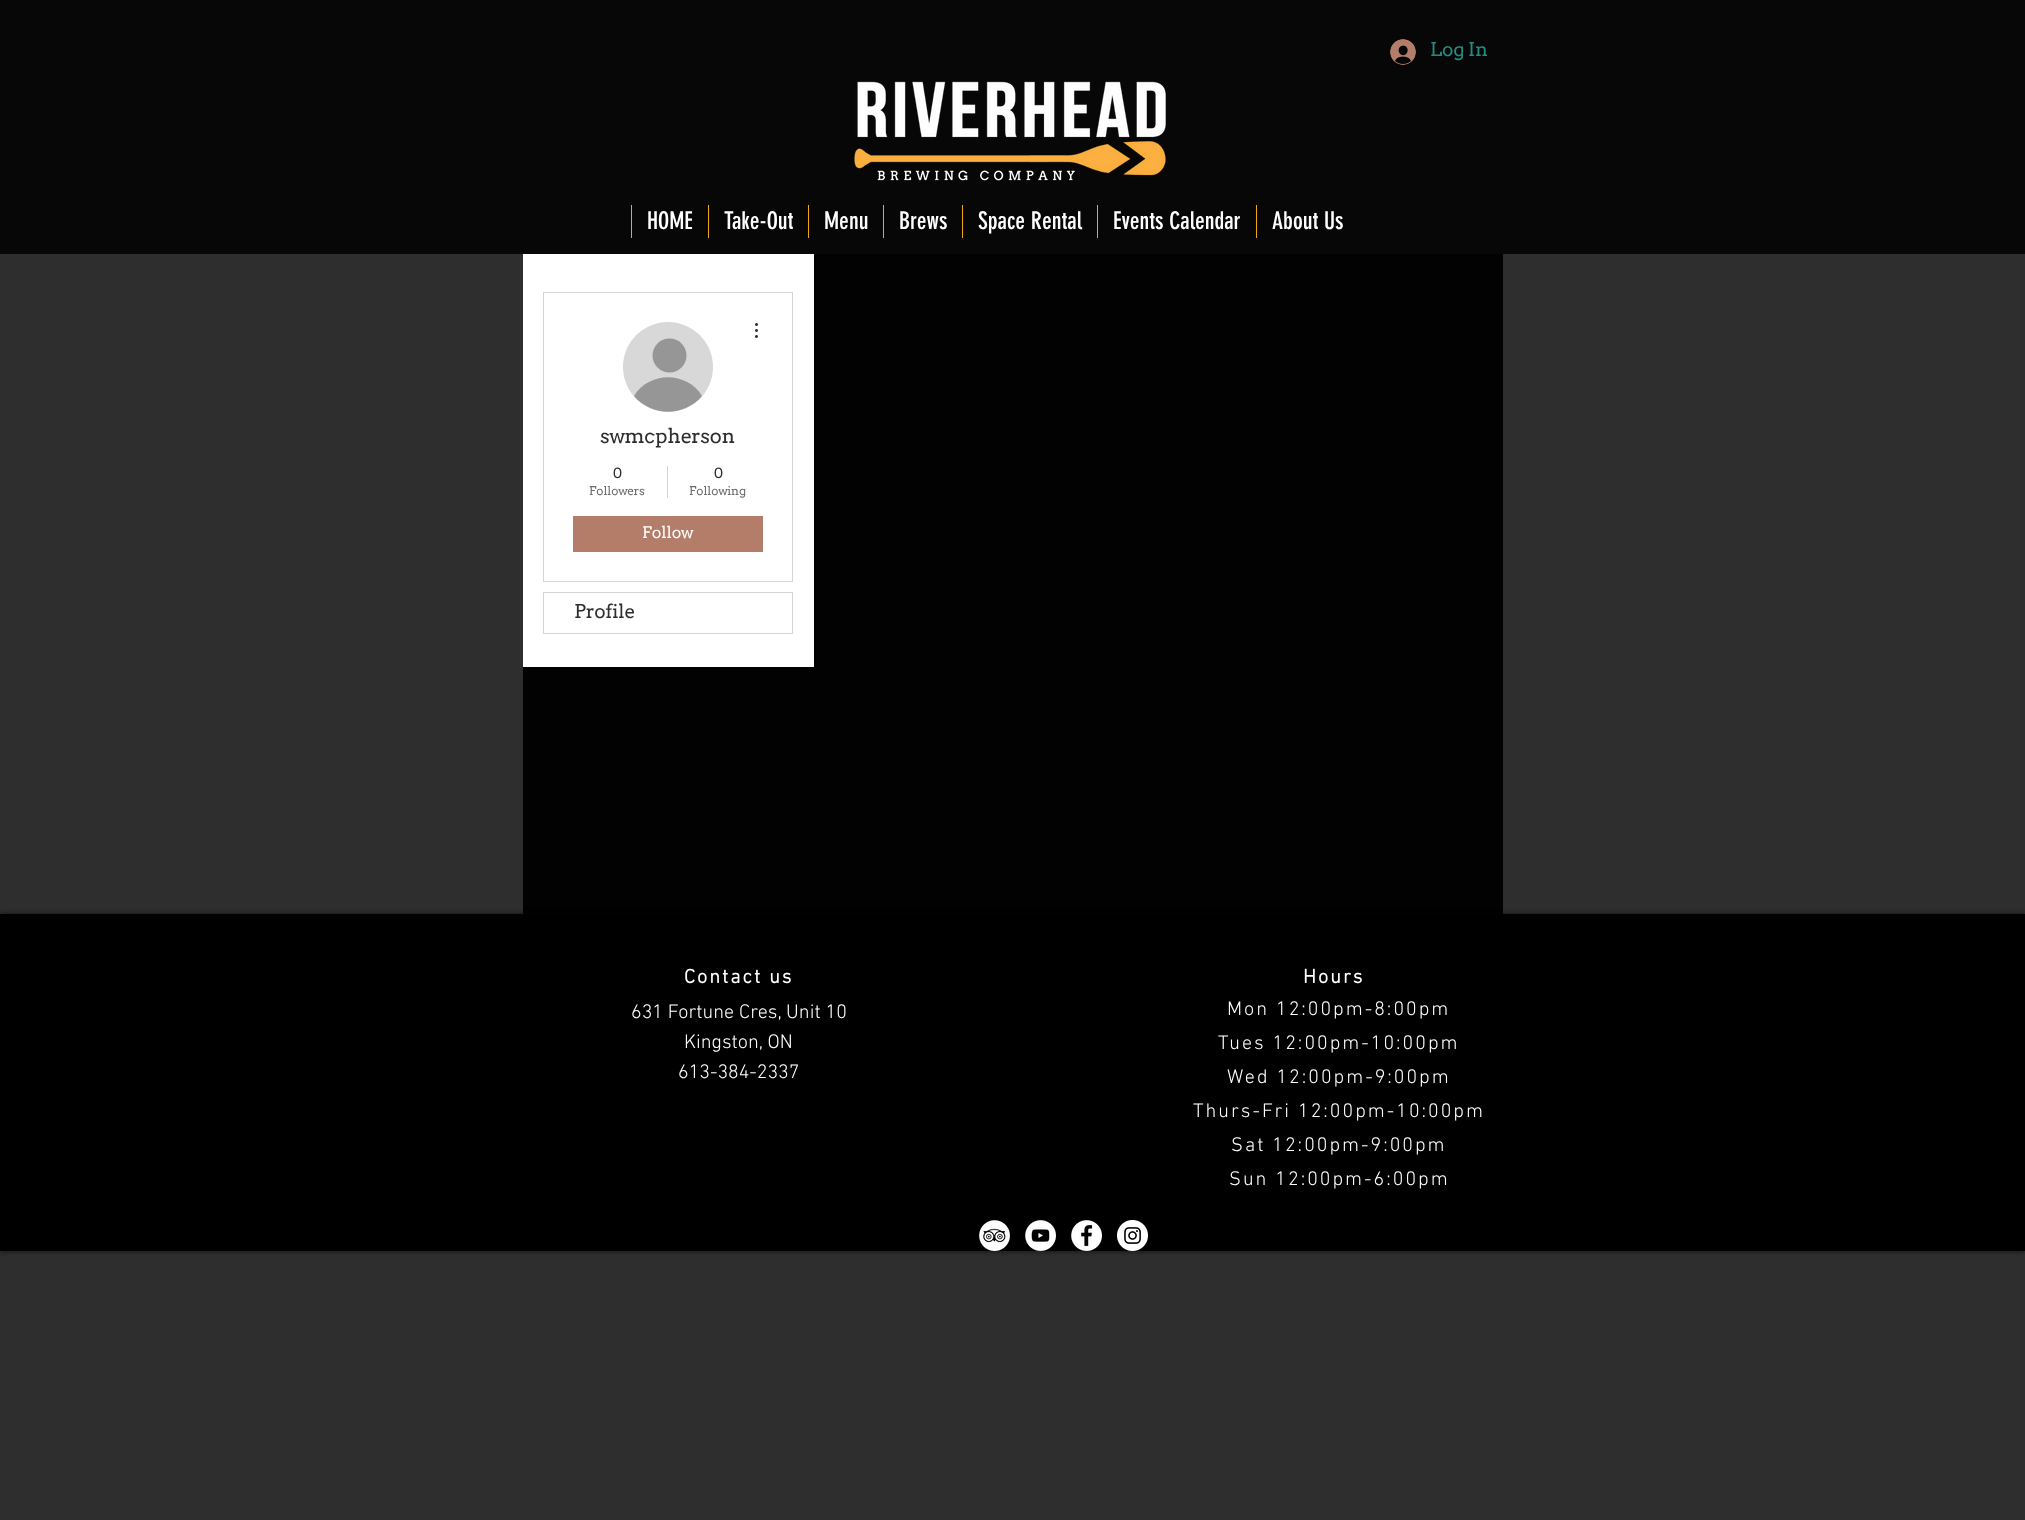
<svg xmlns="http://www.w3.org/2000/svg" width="2025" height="1520">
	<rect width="100%" height="100%" fill="#2F2E2E" />
	<rect x="0" y="0" width="2025" height="254" fill="#070707" />
	<image x="1390" y="39" width="26" height="26" href="assets/img1.png" />
	<text x="1430" y="56" font-family="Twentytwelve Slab" font-size="19" fill="#248C83">Log In</text>
	<image x="854" y="81" width="312" height="100" href="assets/img2.png" />
	<rect x="631" y="205" width="1" height="33" fill="#F0AA06" />
	<text x="647" y="229" font-family="'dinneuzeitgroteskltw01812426'" font-size="24" fill="#FFFFFF">HOME</text>
	<rect x="708" y="205" width="1" height="33" fill="#F0AA06" />
	<text x="724" y="229" font-family="'dinneuzeitgroteskltw01812426'" font-size="24" fill="#FFFFFF">Take-Out</text>
	<rect x="808" y="205" width="1" height="33" fill="#F0AA06" />
	<text x="824" y="229" font-family="'dinneuzeitgroteskltw01812426'" font-size="24" fill="#FFFFFF">Menu</text>
	<rect x="883" y="205" width="1" height="33" fill="#F0AA06" />
	<text x="899" y="229" font-family="'dinneuzeitgroteskltw01812426'" font-size="24" fill="#FFFFFF">Brews</text>
	<rect x="962" y="205" width="1" height="33" fill="#F0AA06" />
	<text x="978" y="229" font-family="'dinneuzeitgroteskltw01812426'" font-size="24" fill="#FFFFFF">Space Rental</text>
	<rect x="1097" y="205" width="1" height="33" fill="#F0AA06" />
	<text x="1113" y="229" font-family="'dinneuzeitgroteskltw01812426'" font-size="24" fill="#FFFFFF">Events Calendar</text>
	<rect x="1256" y="205" width="1" height="33" fill="#F0AA06" />
	<text x="1272" y="229" font-family="'dinneuzeitgroteskltw01812426'" font-size="24" fill="#FFFFFF">About Us</text>
	<rect x="523" y="254" width="980" height="660" fill="#020202" />
	<rect x="523" y="254" width="291" height="413" fill="#FFFFFF" />
	<rect x="543.5" y="292.5" width="249" height="289" fill="none" stroke="#D5D5D5" />
	<circle cx="668" cy="367" r="45" fill="#D8D8D8" />
	<circle cx="669.5" cy="355.5" r="17" fill="#969696" />
	<path d="M702 396C684 417 652 417 634 396C649 371 687 371 702 396Z" fill="#969696" />
	<image x="755" y="323" width="3" height="15" href="assets/img3.png" />
	<text x="600" y="443" font-family="Twentytwelve Slab" font-size="20" fill="#2F2E2E">swmcpherson</text>
	<text x="613" y="478" font-family="Twentytwelve Slab" font-size="14" fill="#2F2E2E">0</text>
	<text x="589" y="495" font-family="Twentytwelve Slab" font-size="12" fill="#6D6D6D">Followers</text>
	<rect x="667" y="466" width="1" height="32" fill="#D5D5D5" />
	<text x="714" y="478" font-family="Twentytwelve Slab" font-size="14" fill="#2F2E2E">0</text>
	<text x="689" y="495" font-family="Twentytwelve Slab" font-size="12" fill="#6D6D6D">Following</text>
	<rect x="573" y="516" width="190" height="36" fill="#B37D69" />
	<text x="642" y="538" font-family="Twentytwelve Slab" font-size="16" fill="#FFFFFF">Follow</text>
	<rect x="543.5" y="592.5" width="249" height="41" fill="none" stroke="#D5D5D5" />
	<text x="574" y="618" font-family="Twentytwelve Slab" font-size="19" fill="#2F2E2E">Profile</text>
	<rect x="0" y="914" width="2025" height="337" fill="#000000" fill-opacity="0.7" filter="blur(2.5px)" />
	<rect x="0" y="914" width="2025" height="337" fill="#000000" />
	<g font-family="'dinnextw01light'" font-size="20" font-weight="700" letter-spacing="2" fill="#FFFFFF">
		<text x="684" y="983">Contact us</text>
		<text x="1303" y="983">Hours</text>
	</g>
	<g font-family="'dinnextw01light'" font-size="20" font-weight="300" fill="#FFFFFF">
		<text x="631" y="1018">631 Fortune Cres, Unit 10</text>
		<text x="684" y="1048">Kingston, ON</text>
		<text x="678" y="1078">613-384-2337</text>
	</g>
	<g font-family="'dinnextw01light'" font-size="20" font-weight="300" letter-spacing="2" fill="#FFFFFF">
		<text x="1227" y="1015">Mon 12:00pm-8:00pm</text>
		<text x="1218" y="1049">Tues 12:00pm-10:00pm</text>
		<text x="1227" y="1083">Wed 12:00pm-9:00pm</text>
		<text x="1193" y="1117">Thurs-Fri 12:00pm-10:00pm</text>
		<text x="1231" y="1151">Sat 12:00pm-9:00pm</text>
		<text x="1229" y="1185">Sun 12:00pm-6:00pm</text>
	</g>
	<image x="979" y="1220" width="31" height="31" href="assets/img4.png" />
	<image x="1025" y="1220" width="31" height="31" href="assets/img5.png" />
	<image x="1071" y="1220" width="31" height="31" href="assets/img6.png" />
	<image x="1117" y="1220" width="31" height="31" href="assets/img7.png" />
</svg>
